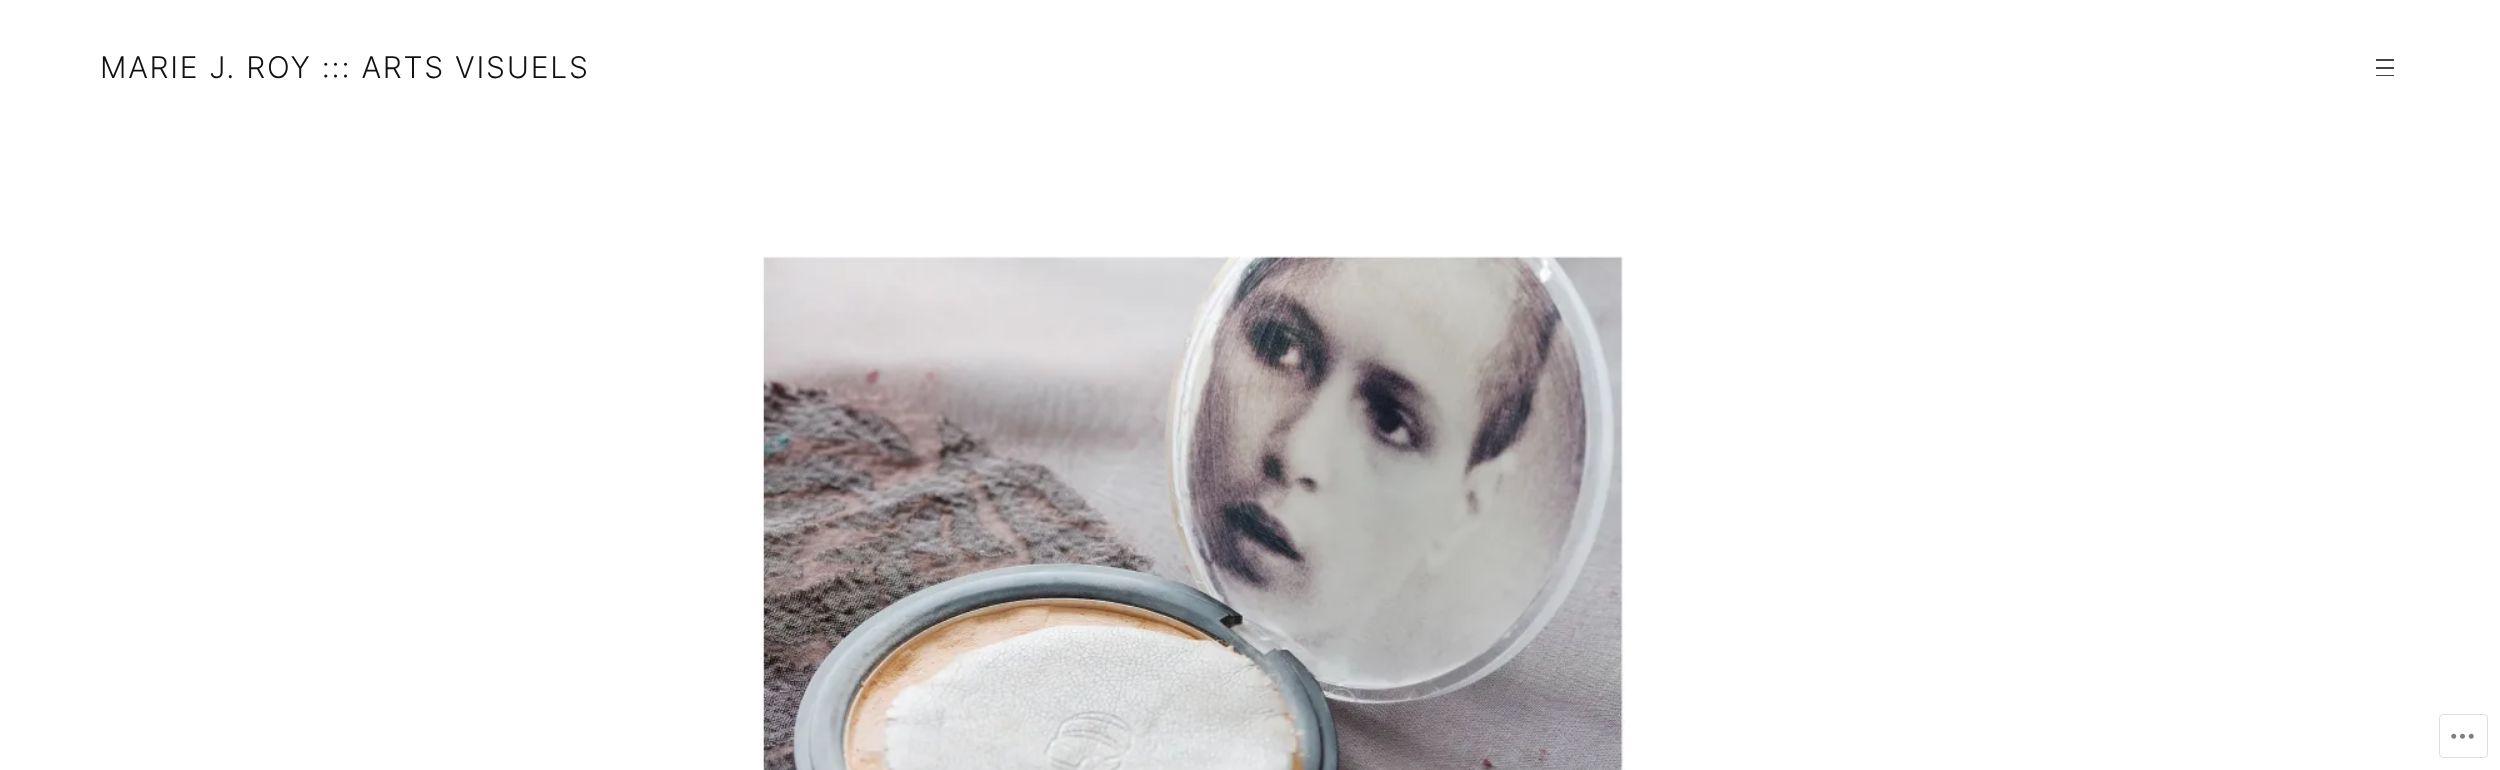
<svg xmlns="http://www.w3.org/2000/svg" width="2500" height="770">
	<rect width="100%" height="100%" fill="#FFFFFF" />
	<text x="100" y="78" font-family="Inter" font-size="30" font-weight="300" letter-spacing="1.75" fill="#111111">MARIE J. ROY ::: ARTS VISUELS</text>
	<rect x="2376" y="59" width="18" height="2" fill="#444444" />
	<rect x="2376" y="67" width="18" height="2" fill="#444444" />
	<rect x="2376" y="75" width="18" height="1" fill="#444444" />
	<image x="760" y="256" width="865" height="514" href="assets/img1.png" />
	<rect x="2439.5" y="714.5" width="48" height="43" rx="3.5" fill="none" stroke="#DDDDDF" />
	<image x="2451" y="733" width="23" height="6" href="assets/img2.png" />
</svg>
